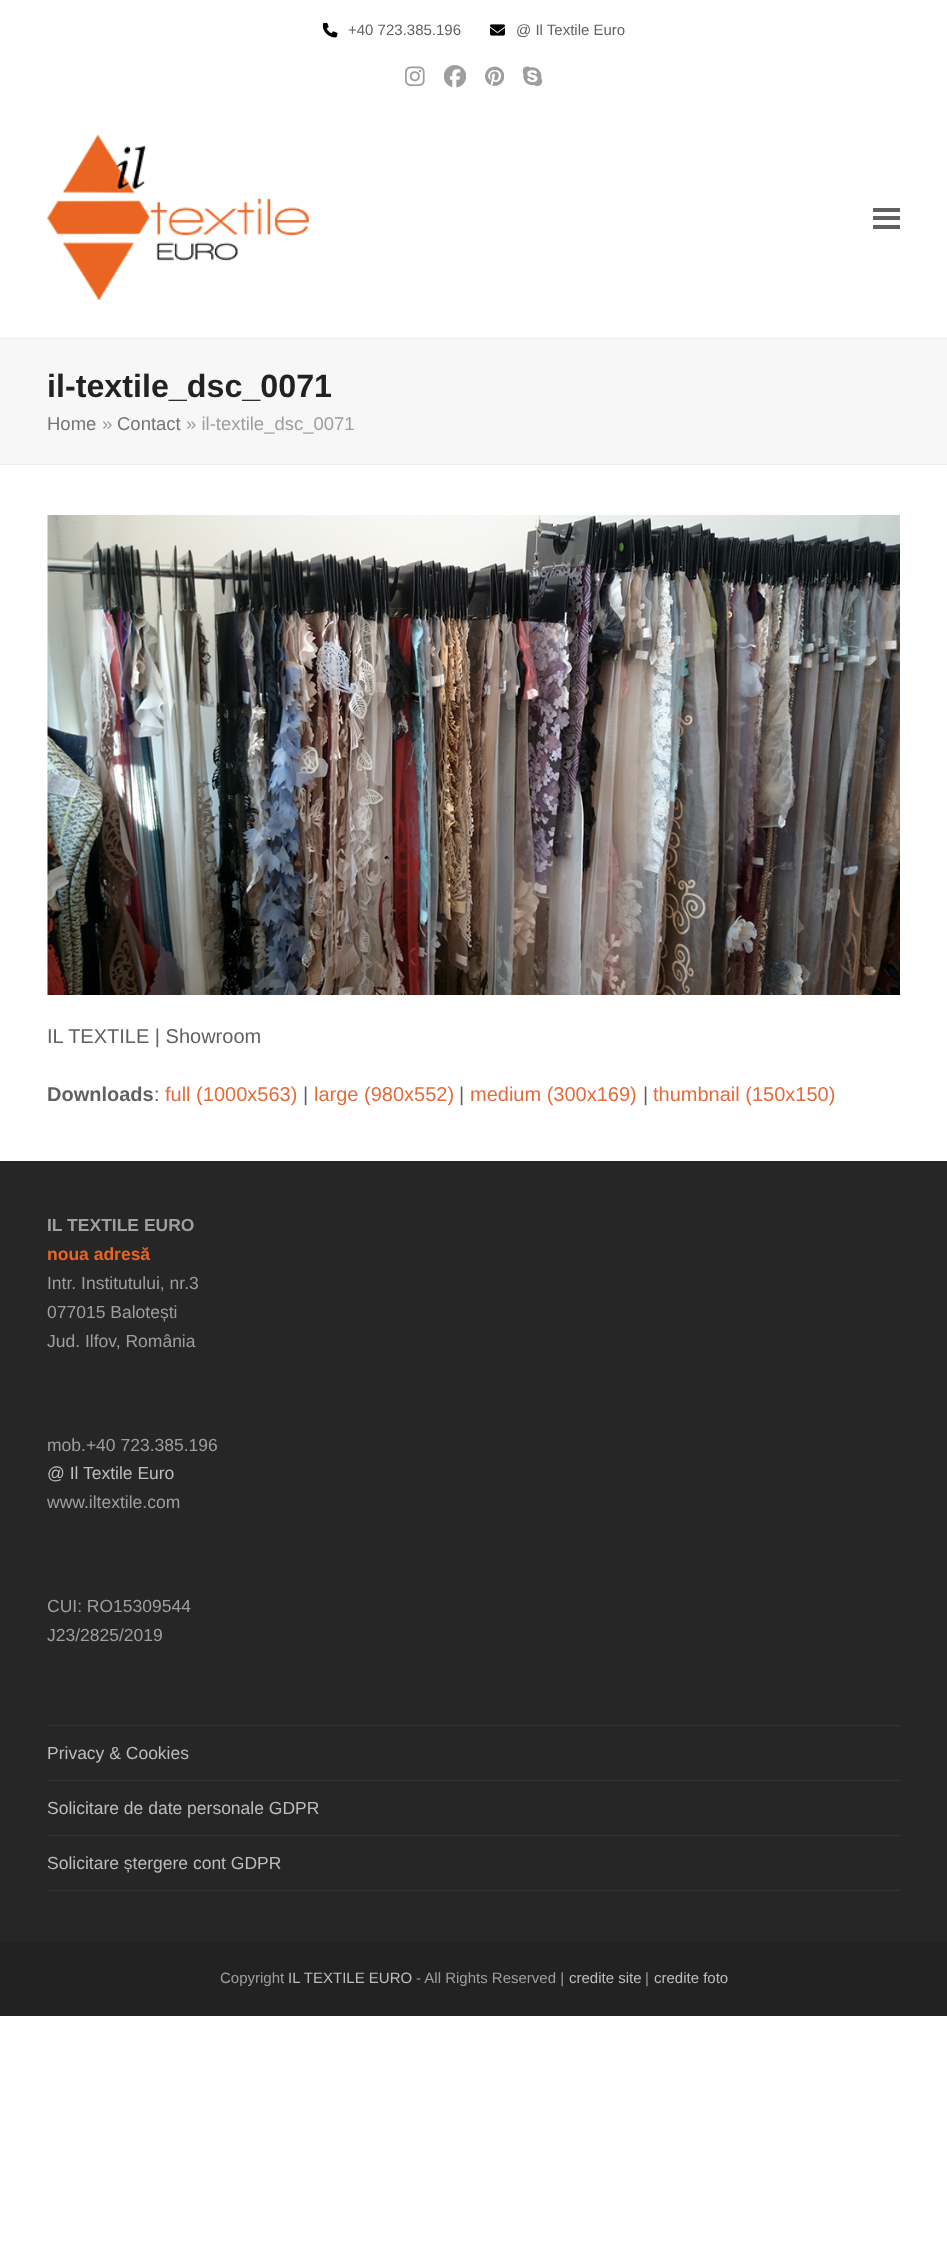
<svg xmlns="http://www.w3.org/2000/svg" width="947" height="2255">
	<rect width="100%" height="100%" fill="#FFFFFF" />
	<image x="323" y="23" width="15" height="15" href="assets/img1.png" />
	<text x="348" y="35" font-family="Liberation Sans" font-size="15" fill="#616161">+40 723.385.196</text>
	<image x="490" y="24" width="15" height="12" href="assets/img2.png" />
	<text x="516" y="35" font-family="Liberation Sans" font-size="15" fill="#616161">@ Il Textile Euro</text>
	<image x="405" y="66" width="20" height="20" href="assets/img3.png" />
	<image x="444" y="65" width="22" height="23" href="assets/img4.png" />
	<image x="485" y="66" width="19" height="20" href="assets/img5.png" />
	<image x="523" y="66" width="20" height="21" href="assets/img6.png" />
	<image x="47" y="135" width="262" height="165" href="assets/img7.png" />
	<rect x="873" y="216" width="27" height="4" fill="#616161" />
	<rect x="873" y="208" width="27" height="4" fill="#616161" />
	<rect x="873" y="225" width="27" height="4" fill="#616161" />
	<rect x="0" y="339" width="947" height="125" fill="#F7F7F7" />
	<rect x="0" y="338" width="947" height="1" fill="#EEEEEE" />
	<rect x="0" y="464" width="947" height="1" fill="#EEEEEE" />
	<text x="47" y="397" font-family="Liberation Sans" font-size="32.25" font-weight="700" fill="#222222">il-textile_dsc_0071</text>
	<text x="47" y="430" font-family="Liberation Sans" font-size="18.5" fill="#757575">Home</text>
	<text x="102" y="430" font-family="Liberation Sans" font-size="18.5" fill="#9E9E9E">»</text>
	<text x="117" y="430" font-family="Liberation Sans" font-size="18.5" fill="#757575">Contact</text>
	<text x="186" y="430" font-family="Liberation Sans" font-size="18.5" fill="#9E9E9E">» il-textile_dsc_0071</text>
	<image x="47" y="515" width="853" height="480" href="assets/img8.png" />
	<text x="47" y="1043" font-family="Liberation Sans" font-size="20" fill="#616161">IL TEXTILE | Showroom</text>
	<text x="47" y="1101" font-family="Liberation Sans" font-size="20" font-weight="700" fill="#616161">Downloads</text>
	<text x="154" y="1101" font-family="Liberation Sans" font-size="20" fill="#616161">:</text>
	<text x="165" y="1101" font-family="Liberation Sans" font-size="20" fill="#E46C3B">full (1000x563)</text>
	<text x="303" y="1101" font-family="Liberation Sans" font-size="20" fill="#616161">|</text>
	<text x="314" y="1101" font-family="Liberation Sans" font-size="20" fill="#E46C3B">large (980x552)</text>
	<text x="459" y="1101" font-family="Liberation Sans" font-size="20" fill="#616161">|</text>
	<text x="470" y="1101" font-family="Liberation Sans" font-size="20" fill="#E46C3B">medium (300x169)</text>
	<text x="643" y="1101" font-family="Liberation Sans" font-size="20" fill="#616161">|</text>
	<text x="653" y="1101" font-family="Liberation Sans" font-size="20" fill="#E46C3B">thumbnail (150x150)</text>
	<rect x="0" y="1161" width="947" height="780" fill="#262626" />
	<text x="47" y="1231" font-family="Liberation Sans" font-size="17.5" font-weight="700" fill="#9E9E9E">IL TEXTILE EURO</text>
	<text x="47" y="1260" font-family="Liberation Sans" font-size="17.5" font-weight="700" fill="#EB6522">noua adresă</text>
	<g font-family="Liberation Sans" font-size="17.5" fill="#9E9E9E">
		<text x="47" y="1289">Intr. Institutului, nr.3</text>
		<text x="47" y="1318">077015 Balotești</text>
		<text x="47" y="1347">Jud. Ilfov, România</text>
		<text x="47" y="1451">mob.+40 723.385.196</text>
	</g>
	<text x="47" y="1479" font-family="Liberation Sans" font-size="17.5" fill="#BDBDBD">@ Il Textile Euro</text>
	<g font-family="Liberation Sans" font-size="17.5" fill="#9E9E9E">
		<text x="47" y="1508">www.iltextile.com</text>
		<text x="47" y="1612">CUI: RO15309544</text>
		<text x="47" y="1641">J23/2825/2019</text>
	</g>
	<rect x="48" y="1725" width="852" height="1" fill="#333333" />
	<rect x="48" y="1780" width="852" height="1" fill="#333333" />
	<text x="47" y="1759" font-family="Liberation Sans" font-size="17.5" fill="#BDBDBD">Privacy &amp; Cookies</text>
	<rect x="48" y="1835" width="852" height="1" fill="#333333" />
	<text x="47" y="1814" font-family="Liberation Sans" font-size="17.5" fill="#BDBDBD">Solicitare de date personale GDPR</text>
	<rect x="48" y="1890" width="852" height="1" fill="#333333" />
	<text x="47" y="1869" font-family="Liberation Sans" font-size="17.5" fill="#BDBDBD">Solicitare ștergere cont GDPR</text>
	<rect x="0" y="1941" width="947" height="75" fill="#222222" />
	<text x="220" y="1983" font-family="Liberation Sans" font-size="15" fill="#9E9E9E">Copyright</text>
	<text x="288" y="1983" font-family="Liberation Sans" font-size="15" fill="#BDBDBD">IL TEXTILE EURO</text>
	<text x="416" y="1983" font-family="Liberation Sans" font-size="15" fill="#9E9E9E">- All Rights Reserved |</text>
	<text x="569" y="1983" font-family="Liberation Sans" font-size="15" fill="#BDBDBD">credite site</text>
	<text x="645" y="1983" font-family="Liberation Sans" font-size="15" fill="#9E9E9E">|</text>
	<text x="654" y="1983" font-family="Liberation Sans" font-size="15" fill="#BDBDBD">credite foto</text>
</svg>
